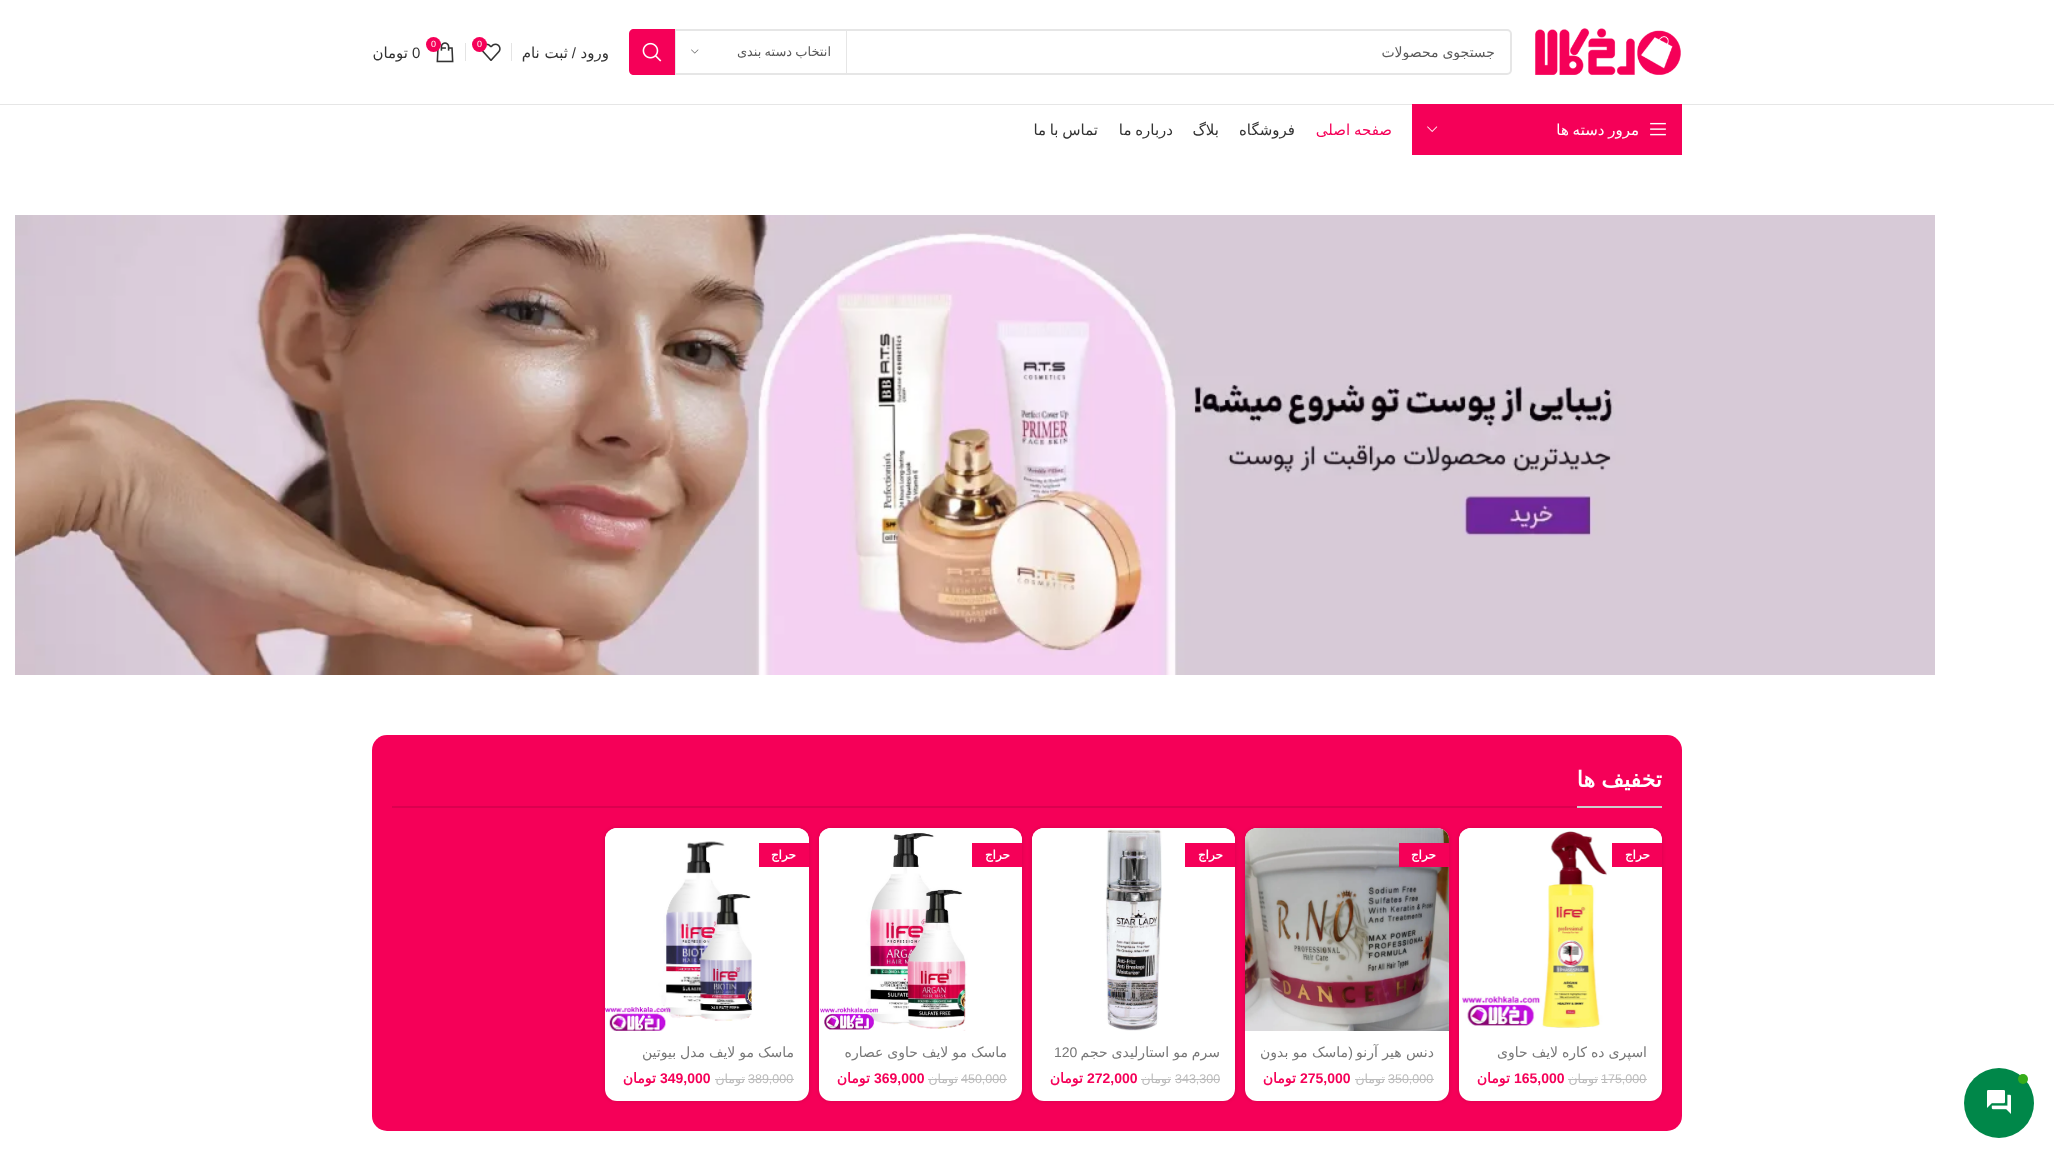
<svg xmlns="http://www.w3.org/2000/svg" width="2054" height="1158">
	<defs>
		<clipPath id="clip1"><rect x="879" y="44" width="616" height="16" /></clipPath>
		<clipPath id="clip2"><rect x="1474" y="1043" width="173" height="20" /></clipPath>
		<clipPath id="clip3"><rect x="1047" y="1043" width="173" height="20" /></clipPath>
		<clipPath id="clip4"><rect x="834" y="1043" width="173" height="20" /></clipPath>
		<clipPath id="clip5"><rect x="620" y="1043" width="174" height="20" /></clipPath>
	</defs>
	<rect width="100%" height="100%" fill="#FFFFFF" />
	<rect x="0" y="104" width="2054" height="1" fill="#E6E6E6" />
	<image x="1535" y="28" width="146" height="47" href="assets/img1.png" />
	<rect x="630" y="30" width="881" height="44" rx="4" fill="none" stroke="#E6E6E6" stroke-width="2" />
	<g clip-path="url(#clip1)">
		<text x="1495" y="57" word-spacing="-0.5" font-family="DejaVu Sans" font-size="14" direction="rtl" fill="#595959">جستجوی محصولات</text>
	</g>
	<rect x="846" y="31" width="1" height="42" fill="#E6E6E6" />
	<rect x="675" y="31" width="1" height="42" fill="#E6E6E6" />
	<text x="831" y="56" word-spacing="-1" font-family="DejaVu Sans" font-size="13" direction="rtl" fill="#595959">انتخاب دسته بندی</text>
	<image x="691" y="49" width="8" height="5" href="assets/img2.png" />
	<path d="M634 29H675V75H634C631 75 629 73 629 70V34C629 31 631 29 634 29Z" fill="#F50058" />
	<image x="642" y="42" width="20" height="20" href="assets/img3.png" />
	<text x="609" y="58" font-family="DejaVu Sans" font-size="15" direction="rtl" fill="#333333">ورود</text>
	<text x="576" y="58" font-family="Liberation Sans" font-size="15" direction="rtl" fill="#333333">/</text>
	<text x="568" y="58" font-family="DejaVu Sans" font-size="15" direction="rtl" fill="#333333">ثبت نام</text>
	<rect x="511" y="43" width="1" height="18" fill="#E4E4E4" />
	<image x="481" y="43" width="20" height="18" href="assets/img4.png" />
	<circle cx="479.5" cy="44.5" r="7.5" fill="#F50058" />
	<text x="477" y="47" font-family="Liberation Sans" font-size="9" fill="#FFFFFF">0</text>
	<rect x="465" y="43" width="1" height="18" fill="#E4E4E4" />
	<image x="436" y="42" width="18" height="21" href="assets/img5.png" />
	<circle cx="433.5" cy="44.5" r="7.5" fill="#F50058" />
	<text x="431" y="47" font-family="Liberation Sans" font-size="9" fill="#FFFFFF">0</text>
	<text x="412" y="58" font-family="Liberation Sans" font-size="15" fill="#333333">0</text>
	<text x="408" y="58" font-family="DejaVu Sans" font-size="15" direction="rtl" fill="#333333">تومان</text>
	<rect x="1412" y="104" width="270" height="51" fill="#F50058" />
	<image x="1650" y="122" width="16" height="14" href="assets/img6.png" />
	<text x="1639" y="135" word-spacing="-1" font-family="DejaVu Sans" font-size="15" direction="rtl" fill="#FFFFFF">مرور دسته ها</text>
	<image x="1427" y="126" width="11" height="6" href="assets/img7.png" />
	<text x="1392" y="135" word-spacing="-1" font-family="DejaVu Sans" font-size="15" direction="rtl" fill="#F50058">صفحه اصلی</text>
	<g font-family="DejaVu Sans" font-size="15" direction="rtl" fill="#333333">
		<text x="1295" y="135">فروشگاه</text>
		<text x="1219" y="135">بلاگ</text>
		<text x="1173" y="135" word-spacing="-1">درباره ما</text>
		<text x="1098" y="135" word-spacing="-1">تماس با ما</text>
	</g>
	<image x="15" y="215" width="1920" height="460" href="assets/img8.png" />
	<rect x="372" y="735" width="1310" height="396" rx="15" fill="#F50058" />
	<rect x="392" y="806" width="1185" height="2" fill="#DB004F" />
	<rect x="1577" y="806" width="85" height="2" fill="#CCCCCC" />
	<text x="1662" y="787" word-spacing="-1" font-family="DejaVu Sans" font-size="22" font-weight="700" direction="rtl" fill="#FFFFFF">تخفیف ها</text>
	<rect x="1459" y="828" width="203" height="273" rx="12" fill="#000000" fill-opacity="0.12" filter="blur(2px)" />
	<rect x="1459" y="828" width="203" height="273" rx="12" fill="#FFFFFF" />
	<image x="1459" y="828" width="203" height="200" href="assets/img9.png" />
	<rect x="1612" y="843" width="50" height="24" fill="#F50058" />
	<text x="1650" y="859" font-family="DejaVu Sans" font-size="12" font-weight="700" direction="rtl" fill="#FFFFFF">حراج</text>
	<g clip-path="url(#clip2)">
		<text x="1647" y="1057" word-spacing="-0.5" font-family="DejaVu Sans" font-size="14" direction="rtl" fill="#777777">اسپری ده کاره لایف حاوی</text>
	</g>
	<text x="1601" y="1083" font-family="Liberation Sans" font-size="12.5" fill="#BBBBBB">175,000</text>
	<rect x="1601" y="1079" width="46" height="1" fill="#BBBBBB" />
	<text x="1598" y="1083" font-family="DejaVu Sans" font-size="12.5" direction="rtl" fill="#BBBBBB">تومان</text>
	<rect x="1568" y="1079" width="30" height="1" fill="#BBBBBB" />
	<text x="1514" y="1083" font-family="Liberation Sans" font-size="14" font-weight="700" fill="#F50058">165,000</text>
	<text x="1510" y="1083" font-family="DejaVu Sans" font-size="14" font-weight="700" direction="rtl" fill="#F50058">تومان</text>
	<rect x="1245" y="828" width="204" height="273" rx="12" fill="#000000" fill-opacity="0.12" filter="blur(2px)" />
	<rect x="1245" y="828" width="204" height="273" rx="12" fill="#FFFFFF" />
	<image x="1245" y="828" width="204" height="203" href="assets/img10.png" />
	<rect x="1399" y="843" width="50" height="24" fill="#F50058" />
	<text x="1436" y="859" font-family="DejaVu Sans" font-size="12" font-weight="700" direction="rtl" fill="#FFFFFF">حراج</text>
	<text x="1434" y="1057" font-family="DejaVu Sans" font-size="14" direction="rtl" fill="#777777">دنس هیر آرنو</text>
	<text x="1353" y="1057" font-family="Liberation Sans" font-size="14" direction="rtl" fill="#777777">(</text>
	<text x="1348" y="1057" font-family="DejaVu Sans" font-size="14" direction="rtl" fill="#777777">ماسک مو بدون</text>
	<text x="1388" y="1083" font-family="Liberation Sans" font-size="12.5" fill="#BBBBBB">350,000</text>
	<rect x="1388" y="1079" width="46" height="1" fill="#BBBBBB" />
	<text x="1385" y="1083" font-family="DejaVu Sans" font-size="12.5" direction="rtl" fill="#BBBBBB">تومان</text>
	<rect x="1355" y="1079" width="30" height="1" fill="#BBBBBB" />
	<text x="1300" y="1083" font-family="Liberation Sans" font-size="14" font-weight="700" fill="#F50058">275,000</text>
	<text x="1296" y="1083" font-family="DejaVu Sans" font-size="14" font-weight="700" direction="rtl" fill="#F50058">تومان</text>
	<rect x="1032" y="828" width="203" height="273" rx="12" fill="#000000" fill-opacity="0.12" filter="blur(2px)" />
	<rect x="1032" y="828" width="203" height="273" rx="12" fill="#FFFFFF" />
	<image x="1032" y="828" width="203" height="203" href="assets/img11.png" />
	<rect x="1185" y="843" width="50" height="24" fill="#F50058" />
	<text x="1223" y="859" font-family="DejaVu Sans" font-size="12" font-weight="700" direction="rtl" fill="#FFFFFF">حراج</text>
	<g clip-path="url(#clip3)">
		<text x="1220" y="1057" word-spacing="-0.5" font-family="DejaVu Sans" font-size="14" direction="rtl" fill="#777777">سرم مو استارلیدی حجم</text>
	</g>
	<text x="1054" y="1057" font-family="Liberation Sans" font-size="14" fill="#777777">120</text>
	<text x="1175" y="1083" font-family="Liberation Sans" font-size="12.5" fill="#BBBBBB">343,300</text>
	<rect x="1175" y="1079" width="45" height="1" fill="#BBBBBB" />
	<text x="1171" y="1083" font-family="DejaVu Sans" font-size="12.5" direction="rtl" fill="#BBBBBB">تومان</text>
	<rect x="1141" y="1079" width="30" height="1" fill="#BBBBBB" />
	<text x="1087" y="1083" font-family="Liberation Sans" font-size="14" font-weight="700" fill="#F50058">272,000</text>
	<text x="1083" y="1083" font-family="DejaVu Sans" font-size="14" font-weight="700" direction="rtl" fill="#F50058">تومان</text>
	<rect x="819" y="828" width="203" height="273" rx="12" fill="#000000" fill-opacity="0.12" filter="blur(2px)" />
	<rect x="819" y="828" width="203" height="273" rx="12" fill="#FFFFFF" />
	<image x="819" y="828" width="203" height="203" href="assets/img12.png" />
	<rect x="972" y="843" width="50" height="24" fill="#F50058" />
	<text x="1010" y="859" font-family="DejaVu Sans" font-size="12" font-weight="700" direction="rtl" fill="#FFFFFF">حراج</text>
	<g clip-path="url(#clip4)">
		<text x="1007" y="1057" word-spacing="-0.5" font-family="DejaVu Sans" font-size="14" direction="rtl" fill="#777777">ماسک مو لایف حاوی عصاره</text>
	</g>
	<text x="961" y="1083" font-family="Liberation Sans" font-size="12.5" fill="#BBBBBB">450,000</text>
	<rect x="961" y="1079" width="46" height="1" fill="#BBBBBB" />
	<text x="958" y="1083" font-family="DejaVu Sans" font-size="12.5" direction="rtl" fill="#BBBBBB">تومان</text>
	<rect x="928" y="1079" width="30" height="1" fill="#BBBBBB" />
	<text x="874" y="1083" font-family="Liberation Sans" font-size="14" font-weight="700" fill="#F50058">369,000</text>
	<text x="870" y="1083" font-family="DejaVu Sans" font-size="14" font-weight="700" direction="rtl" fill="#F50058">تومان</text>
	<rect x="605" y="828" width="204" height="273" rx="12" fill="#000000" fill-opacity="0.12" filter="blur(2px)" />
	<rect x="605" y="828" width="204" height="273" rx="12" fill="#FFFFFF" />
	<image x="605" y="828" width="204" height="203" href="assets/img13.png" />
	<rect x="759" y="843" width="50" height="24" fill="#F50058" />
	<text x="796" y="859" font-family="DejaVu Sans" font-size="12" font-weight="700" direction="rtl" fill="#FFFFFF">حراج</text>
	<g clip-path="url(#clip5)">
		<text x="794" y="1057" word-spacing="-0.5" font-family="DejaVu Sans" font-size="14" direction="rtl" fill="#777777">ماسک مو لایف مدل بیوتین</text>
	</g>
	<text x="748" y="1083" font-family="Liberation Sans" font-size="12.5" fill="#BBBBBB">389,000</text>
	<rect x="748" y="1079" width="46" height="1" fill="#BBBBBB" />
	<text x="745" y="1083" font-family="DejaVu Sans" font-size="12.5" direction="rtl" fill="#BBBBBB">تومان</text>
	<rect x="715" y="1079" width="30" height="1" fill="#BBBBBB" />
	<text x="660" y="1083" font-family="Liberation Sans" font-size="14" font-weight="700" fill="#F50058">349,000</text>
	<text x="656" y="1083" font-family="DejaVu Sans" font-size="14" font-weight="700" direction="rtl" fill="#F50058">تومان</text>
	<circle cx="1999" cy="1103" r="35" fill="#008749" />
	<circle cx="2023" cy="1079" r="5" fill="#35AC19" />
	<image x="1987" y="1090" width="24" height="24" href="assets/img14.png" />
</svg>
